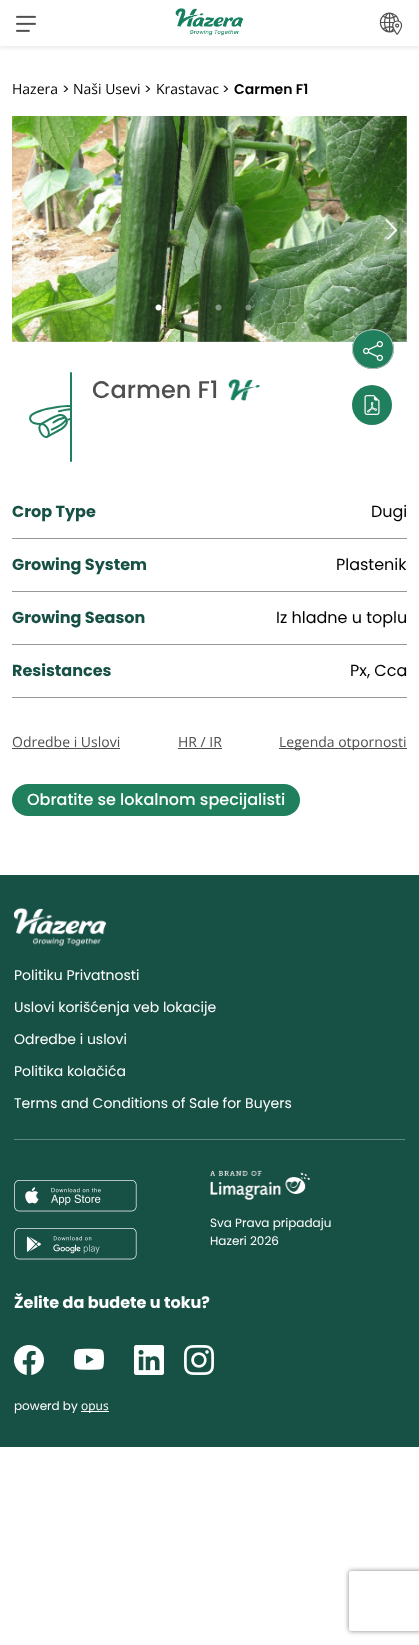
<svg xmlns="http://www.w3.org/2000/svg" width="419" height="1645">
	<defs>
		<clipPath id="clip1"><rect x="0" y="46" width="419" height="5" /></clipPath>
		<clipPath id="clip2"><path d="M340 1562H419V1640H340ZM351 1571H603C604 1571 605 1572 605 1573V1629C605 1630 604 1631 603 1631H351C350 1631 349 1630 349 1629V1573C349 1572 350 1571 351 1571Z" clip-rule="evenodd" /></clipPath>
	</defs>
	<rect width="100%" height="100%" fill="#FFFFFF" />
	<g clip-path="url(#clip1)">
		<rect x="0" y="3" width="419" height="46" fill="#9F9F9F" fill-opacity="0.16" filter="blur(1.5px)" />
	</g>
	<image x="16" y="15" width="20" height="17" href="assets/img1.png" />
	<image x="175" y="8" width="69" height="28" href="assets/img2.png" />
	<image x="379" y="12" width="24" height="23" href="assets/img3.png" />
	<text x="12" y="94" font-family="Open Sans" font-size="14" fill="#000000">Hazera</text>
	<text x="62" y="94" font-family="Poppins" font-size="14" fill="#000000">&gt;</text>
	<text x="73" y="94" font-family="Open Sans" font-size="14" fill="#000000">Naši Usevi</text>
	<text x="144" y="94" font-family="Poppins" font-size="14" fill="#000000">&gt;</text>
	<text x="156" y="94" font-family="Open Sans" font-size="14" fill="#000000">Krastavac</text>
	<text x="222" y="94" font-family="Poppins" font-size="14" fill="#000000">&gt;</text>
	<text x="234" y="94" font-family="Poppins" font-size="14" font-weight="600" fill="#000000">Carmen F1</text>
	<image x="12" y="116" width="395" height="226" href="assets/img4.png" />
	<image x="22" y="218" width="12" height="22" href="assets/img5.png" />
	<image x="385" y="218" width="12" height="22" href="assets/img6.png" />
	<image x="155" y="304" width="7" height="7" href="assets/img7.png" />
	<image x="185" y="304" width="7" height="7" href="assets/img8.png" />
	<image x="215" y="304" width="7" height="7" href="assets/img9.png" />
	<image x="245" y="304" width="7" height="7" href="assets/img10.png" />
	<image x="29" y="372" width="43" height="90" href="assets/img11.png" />
	<text x="92" y="398" font-family="Poppins" font-size="24" font-weight="500" fill="#4F4F4F">Carmen F1</text>
	<image x="228" y="379" width="32" height="22" href="assets/img12.png" />
	<ellipse cx="373" cy="349" rx="21" ry="20" fill="#20805E" />
	<path d="M387.5 363C379.5 370.5 366.5 370.5 358.5 363" fill="none" stroke="#BBBBBB" />
	<path d="M358.5 363C354.5 359 352.5 354 352.5 349C352.5 325.5 388.5 322.5 393 345C394.5 351.5 392 358.5 387.5 363" fill="none" stroke="#CCCCCC" />
	<image x="363" y="341" width="20" height="20" href="assets/img13.png" />
	<circle cx="372" cy="405" r="20" fill="#20805E" />
	<image x="364" y="395" width="16" height="20" href="assets/img14.png" />
	<rect x="12" y="538" width="395" height="1" fill="#979797" />
	<text x="12" y="517" font-family="Poppins" font-size="16" font-weight="700" fill="#175045">Crop Type</text>
	<text x="371" y="517" font-family="Poppins" font-size="16" fill="#000000">Dugi</text>
	<rect x="12" y="591" width="395" height="1" fill="#979797" />
	<text x="12" y="570" font-family="Poppins" font-size="16" font-weight="700" fill="#175045">Growing System</text>
	<text x="336" y="570" font-family="Poppins" font-size="16" fill="#000000">Plastenik</text>
	<rect x="12" y="644" width="395" height="1" fill="#979797" />
	<text x="12" y="623" font-family="Poppins" font-size="16" font-weight="700" fill="#175045">Growing Season</text>
	<text x="276" y="623" font-family="Poppins" font-size="16" fill="#000000">Iz hladne u toplu</text>
	<rect x="12" y="697" width="395" height="1" fill="#979797" />
	<text x="12" y="676" font-family="Poppins" font-size="16" font-weight="700" fill="#175045">Resistances</text>
	<text x="350" y="676" font-family="Poppins" font-size="16" fill="#000000">Px, Cca</text>
	<text x="12" y="747" font-family="Open Sans" font-size="14" fill="#4F4F4F">Odredbe i Uslovi</text>
	<rect x="12" y="748" width="108" height="1" fill="#4F4F4F" />
	<text x="178" y="747" font-family="Open Sans" font-size="14" fill="#4F4F4F">HR / IR</text>
	<rect x="178" y="748" width="44" height="1" fill="#4F4F4F" />
	<rect x="279" y="748" width="128" height="1" fill="#4F4F4F" />
	<text x="279" y="747" font-family="Open Sans" font-size="14" fill="#4F4F4F">Legenda otpornosti</text>
	<rect x="12" y="784" width="288" height="32" rx="16" fill="#20805E" />
	<text x="27" y="805" font-family="Poppins" font-size="16" font-weight="500" fill="#FFFFFF">Obratite se lokalnom specijalisti</text>
	<rect x="0" y="875" width="419" height="572" fill="#175045" />
	<image x="14" y="908" width="92" height="39" href="assets/img15.png" />
	<rect x="14" y="1139" width="391" height="1" fill="#60867F" />
	<g font-family="Poppins" font-size="14" fill="#FFFFFF">
		<text x="14" y="980">Politiku Privatnosti</text>
		<text x="14" y="1012">Uslovi korišćenja veb lokacije</text>
		<text x="14" y="1044">Odredbe i uslovi</text>
		<text x="14" y="1076">Politika kolačića</text>
		<text x="14" y="1108">Terms and Conditions of Sale for Buyers</text>
	</g>
	<image x="14" y="1180" width="123" height="32" href="assets/img16.png" />
	<image x="14" y="1228" width="123" height="32" href="assets/img17.png" />
	<image x="210" y="1170" width="100" height="30" href="assets/img18.png" />
	<g font-family="Poppins" font-size="12" fill="#FFFFFF">
		<text x="210" y="1227">Sva Prava pripadaju</text>
		<text x="210" y="1245">Hazeri 2026</text>
	</g>
	<text x="14" y="1308" font-family="Poppins" font-size="16" font-weight="700" fill="#FFFFFF">Želite da budete u toku?</text>
	<image x="14" y="1345" width="30" height="30" href="assets/img19.png" />
	<image x="74" y="1348" width="30" height="22" href="assets/img20.png" />
	<image x="134" y="1345" width="30" height="30" href="assets/img21.png" />
	<image x="184" y="1345" width="30" height="30" href="assets/img22.png" />
	<text x="14" y="1410" font-family="Poppins" font-size="12" fill="#FFFFFF">powerd by</text>
	<rect x="81" y="1411" width="28" height="1" fill="#FFFFFF" />
	<text x="81" y="1410" font-family="Open Sans" font-size="12" fill="#FFFFFF">opus</text>
	<g clip-path="url(#clip2)">
		<rect x="349" y="1571" width="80" height="60" rx="2" fill="#808080" filter="blur(2.5px)" />
	</g>
</svg>
